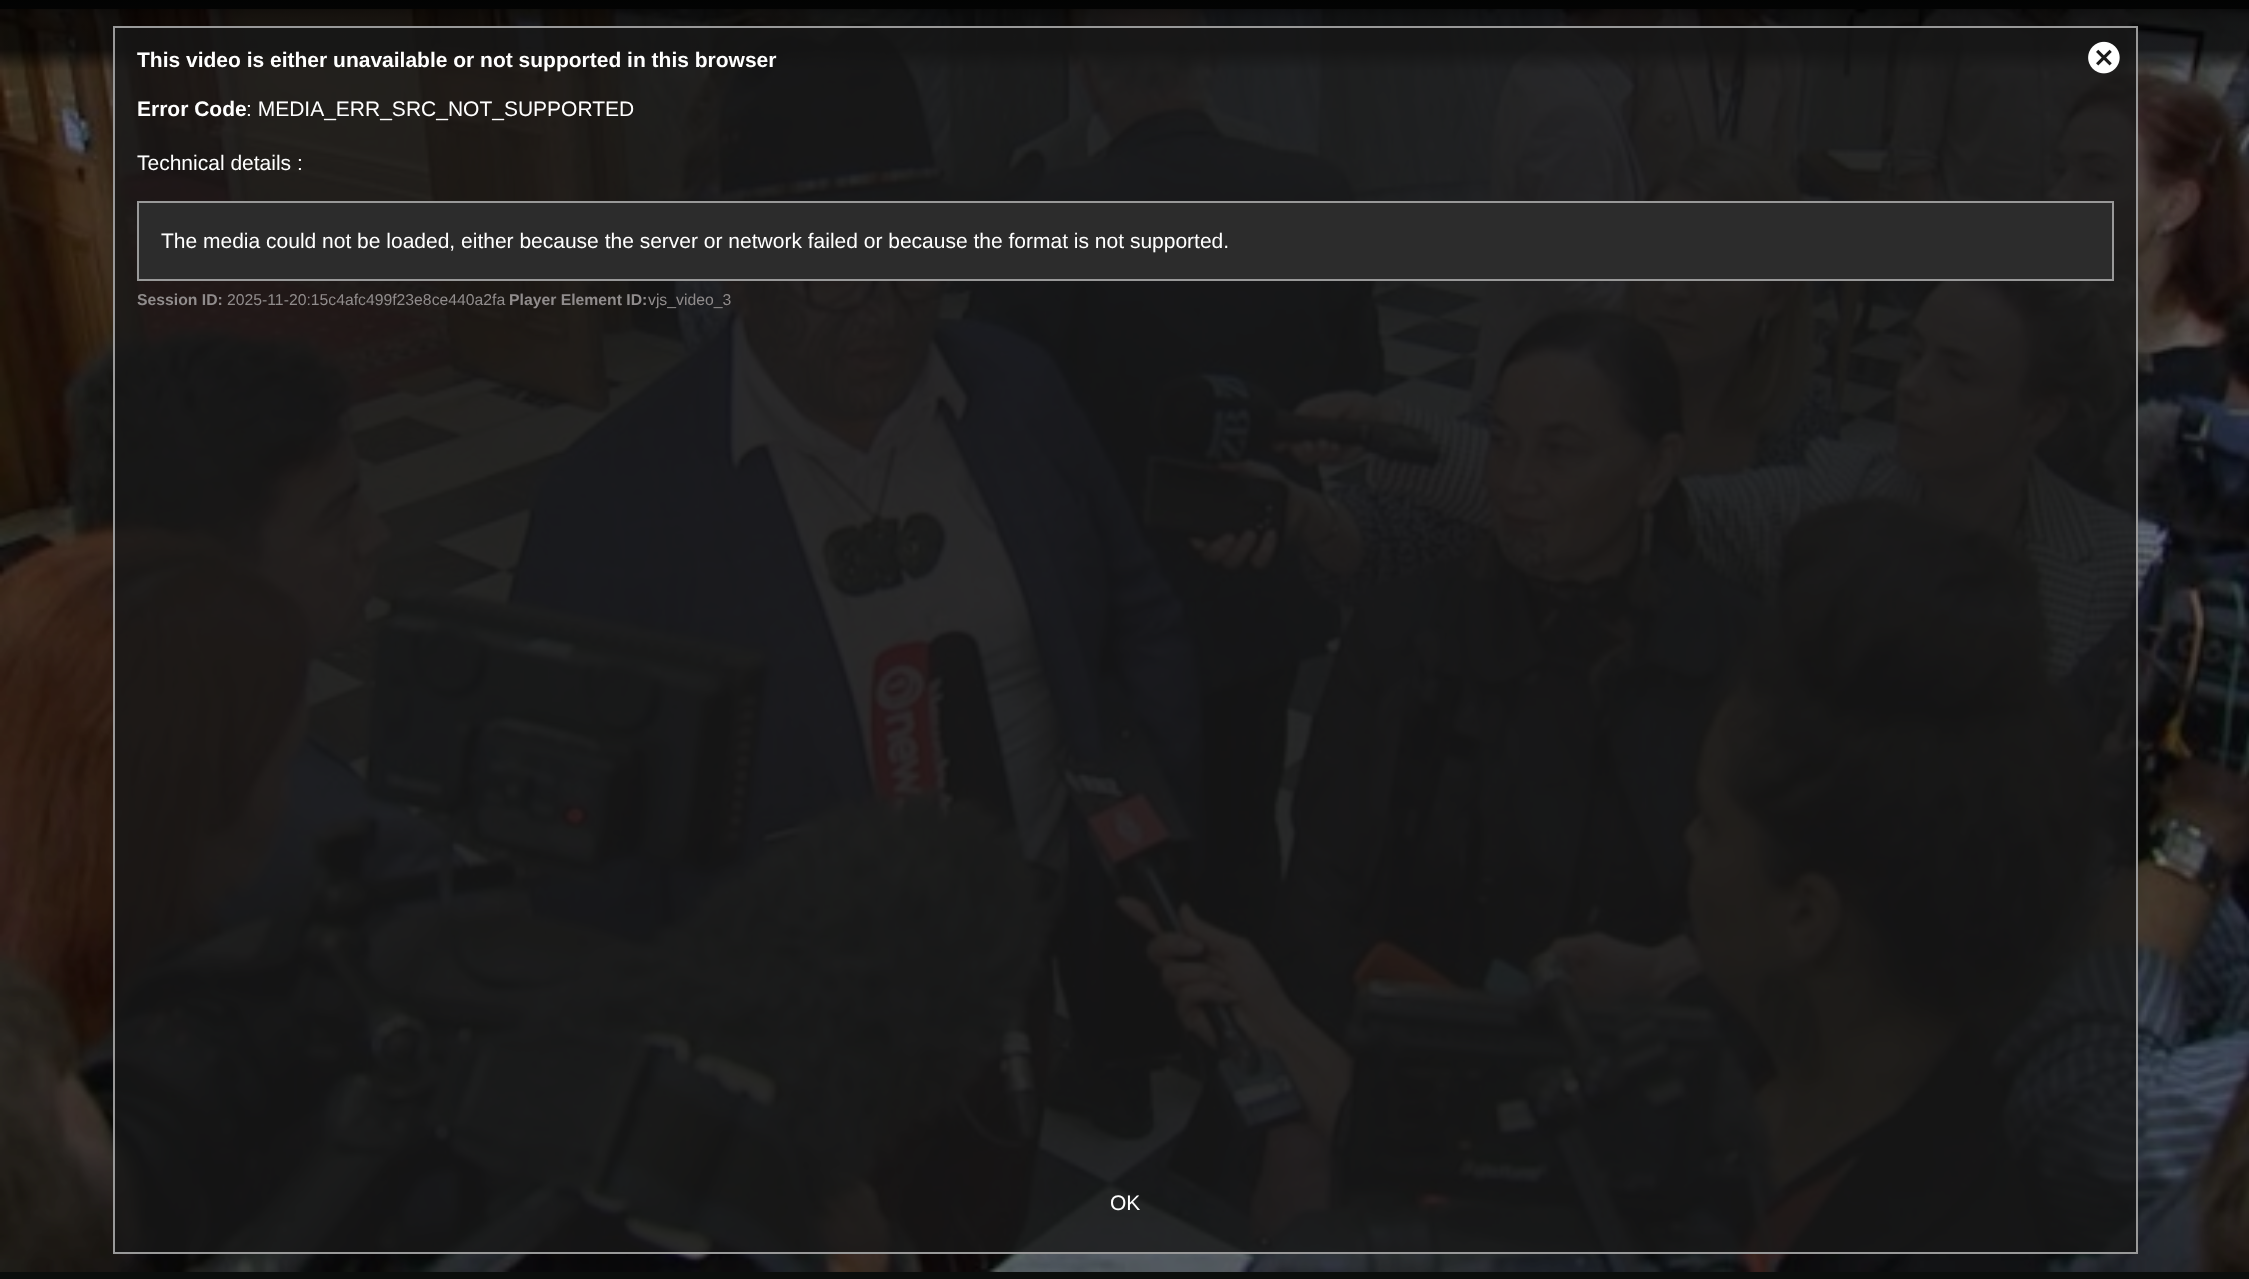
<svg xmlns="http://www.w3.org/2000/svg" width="2249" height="1279">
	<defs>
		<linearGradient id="g1" gradientUnits="userSpaceOnUse" x1="1125" y1="0" x2="1125" y2="71"><stop offset="0" stop-color="#000000" stop-opacity="0.8" /><stop offset="0.3" stop-color="#000000" stop-opacity="0.7" /><stop offset="0.7" stop-color="#000000" stop-opacity="0.7" /><stop offset="1" stop-color="#000000" stop-opacity="0" /></linearGradient>
		<clipPath id="clip1"><rect x="137" y="27" width="1977" height="1134" /></clipPath>
	</defs>
	<rect width="100%" height="100%" fill="#0B0E0C" />
	<image x="0" y="9" width="2249" height="1263" href="assets/img1.png" />
	<rect x="0" y="0" width="2249" height="70" fill="url(#g1)" />
	<rect x="114" y="27" width="2023" height="1226" fill="#181818" fill-opacity="0.8" stroke="#999999" stroke-width="2" />
	<g clip-path="url(#clip1)">
		<text x="137" y="67" font-family="Liberation Sans" font-size="21" font-weight="700" fill="#FFFFFF">This video is either unavailable or not supported in this browser</text>
	</g>
	<text x="137" y="116" font-family="Liberation Sans" font-size="21" font-weight="700" fill="#FFFFFF">Error Code</text>
	<g font-family="Liberation Sans" font-size="21" fill="#FFFFFF">
		<text x="246" y="116">: MEDIA_ERR_SRC_NOT_SUPPORTED</text>
		<text x="137" y="170">Technical details :</text>
	</g>
	<rect x="138" y="202" width="1975" height="78" fill="#2C2C2C" stroke="#999999" stroke-width="2" />
	<text x="161" y="248" font-family="Liberation Sans" font-size="21" fill="#FFFFFF">The media could not be loaded, either because the server or network failed or because the format is not supported.</text>
	<text x="137" y="305" font-family="Liberation Sans" font-size="15.75" font-weight="700" fill="#908C8C">Session ID:</text>
	<text x="227" y="305" font-family="Liberation Sans" font-size="15.75" fill="#908C8C">2025-11-20:15c4afc499f23e8ce440a2fa</text>
	<text x="509" y="305" font-family="Liberation Sans" font-size="15.75" font-weight="700" fill="#908C8C">Player Element ID:</text>
	<text x="648" y="305" font-family="Liberation Sans" font-size="15.75" fill="#908C8C">vjs_video_3</text>
	<image x="2088" y="41" width="32" height="33" href="assets/img2.png" />
	<text x="1110" y="1210" font-family="Liberation Sans" font-size="21" fill="#FFFFFF">OK</text>
</svg>
